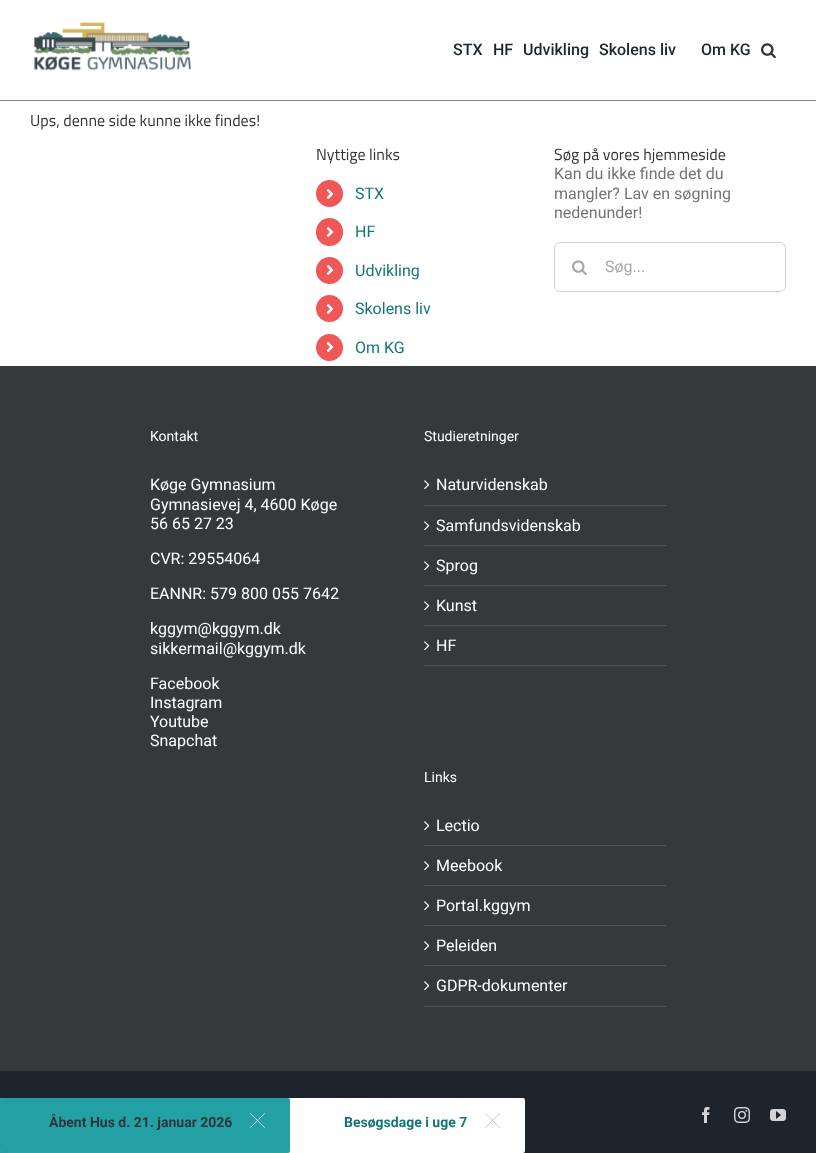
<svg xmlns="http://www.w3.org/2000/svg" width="816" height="1153">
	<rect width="100%" height="100%" fill="#FFFFFF" />
	<rect x="0" y="100" width="816" height="1" fill="#7A8A8B" />
	<image x="34" y="22" width="157" height="49" href="assets/img1.png" />
	<g font-family="Roboto" font-size="16" font-weight="500" fill="#1C272E">
		<text x="453" y="55">STX</text>
		<text x="493" y="55">HF</text>
		<text x="523" y="55">Udvikling</text>
		<text x="599" y="55">Skolens liv</text>
		<text x="701" y="55">Om KG</text>
	</g>
	<image x="761" y="43" width="15" height="16" href="assets/img2.png" />
	<g font-family="Titillium Web" font-size="16" fill="#333333">
		<text x="30" y="126">Ups, denne side kunne ikke findes!</text>
		<text x="316" y="160">Nyttige links</text>
	</g>
	<circle cx="329.5" cy="193.5" r="13.5" fill="#F05858" />
	<image x="326" y="189" width="8" height="10" href="assets/img3.png" />
	<text x="355" y="199" font-family="Roboto" font-size="16" fill="#147678">STX</text>
	<rect x="316" y="218" width="27" height="28" rx="13.5" fill="#F05858" />
	<image x="326" y="227" width="8" height="10" href="assets/img3.png" />
	<text x="355" y="237" font-family="Roboto" font-size="16" fill="#147678">HF</text>
	<circle cx="329.5" cy="270.5" r="13.5" fill="#F05858" />
	<image x="326" y="265" width="8" height="10" href="assets/img3.png" />
	<text x="355" y="276" font-family="Roboto" font-size="16" fill="#147678">Udvikling</text>
	<circle cx="329.5" cy="308.5" r="13.5" fill="#F05858" />
	<image x="326" y="304" width="8" height="10" href="assets/img3.png" />
	<text x="355" y="314" font-family="Roboto" font-size="16" fill="#147678">Skolens liv</text>
	<circle cx="329.5" cy="347.5" r="13.5" fill="#F05858" />
	<image x="326" y="342" width="8" height="10" href="assets/img3.png" />
	<text x="355" y="353" font-family="Roboto" font-size="16" fill="#147678">Om KG</text>
	<text x="554" y="160" font-family="Titillium Web" font-size="16" fill="#333333">Søg på vores hjemmeside</text>
	<g font-family="Roboto" font-size="16" fill="#747474">
		<text x="554" y="179">Kan du ikke finde det du</text>
		<text x="554" y="199">mangler? Lav en søgning</text>
		<text x="554" y="218">nedenunder!</text>
	</g>
	<rect x="554.5" y="242.5" width="231" height="49" rx="5.5" fill="none" stroke="#D2D2D2" />
	<image x="572" y="260" width="15" height="16" href="assets/img4.png" />
	<text x="605" y="272" font-family="Roboto" font-size="16" fill="#AAA9A9">Søg...</text>
	<rect x="0" y="366" width="816" height="705" fill="#363839" />
	<text x="150" y="441" font-family="Roboto" font-size="14" fill="#FFFFFF">Kontakt</text>
	<g font-family="Roboto" font-size="16" fill="#FFFFFF">
		<text x="150" y="490">Køge Gymnasium</text>
		<text x="150" y="510">Gymnasievej 4, 4600 Køge</text>
		<text x="150" y="529">56 65 27 23</text>
		<text x="150" y="564">CVR: 29554064</text>
		<text x="150" y="599">EANNR: 579 800 055 7642</text>
		<text x="150" y="634">kggym@kggym.dk</text>
		<text x="150" y="654">sikkermail@kggym.dk</text>
		<text x="150" y="689">Facebook</text>
		<text x="150" y="708">Instagram</text>
		<text x="150" y="727">Youtube</text>
		<text x="150" y="746">Snapchat</text>
	</g>
	<text x="424" y="441" font-family="Roboto" font-size="14" fill="#FFFFFF">Studieretninger</text>
	<rect x="424" y="505" width="242" height="1" fill="#505152" />
	<image x="424" y="480" width="6" height="10" href="assets/img5.png" />
	<text x="436" y="490" font-family="Roboto" font-size="16" fill="#FFFFFF">Naturvidenskab</text>
	<rect x="424" y="545" width="242" height="1" fill="#505152" />
	<image x="424" y="521" width="6" height="10" href="assets/img5.png" />
	<text x="436" y="531" font-family="Roboto" font-size="16" fill="#FFFFFF">Samfundsvidenskab</text>
	<rect x="424" y="585" width="242" height="1" fill="#505152" />
	<image x="424" y="561" width="6" height="10" href="assets/img5.png" />
	<text x="436" y="571" font-family="Roboto" font-size="16" fill="#FFFFFF">Sprog</text>
	<rect x="424" y="625" width="242" height="1" fill="#505152" />
	<image x="424" y="601" width="6" height="10" href="assets/img5.png" />
	<text x="436" y="611" font-family="Roboto" font-size="16" fill="#FFFFFF">Kunst</text>
	<rect x="424" y="665" width="242" height="1" fill="#505152" />
	<image x="424" y="641" width="6" height="10" href="assets/img5.png" />
	<text x="436" y="651" font-family="Roboto" font-size="16" fill="#FFFFFF">HF</text>
	<text x="424" y="782" font-family="Roboto" font-size="14" fill="#FFFFFF">Links</text>
	<rect x="424" y="845" width="242" height="1" fill="#505152" />
	<image x="424" y="821" width="6" height="10" href="assets/img5.png" />
	<text x="436" y="831" font-family="Roboto" font-size="16" fill="#FFFFFF">Lectio</text>
	<rect x="424" y="885" width="242" height="1" fill="#505152" />
	<image x="424" y="861" width="6" height="10" href="assets/img5.png" />
	<text x="436" y="871" font-family="Roboto" font-size="16" fill="#FFFFFF">Meebook</text>
	<rect x="424" y="925" width="242" height="1" fill="#505152" />
	<image x="424" y="901" width="6" height="10" href="assets/img5.png" />
	<text x="436" y="911" font-family="Roboto" font-size="16" fill="#FFFFFF">Portal.kggym</text>
	<rect x="424" y="965" width="242" height="1" fill="#505152" />
	<image x="424" y="941" width="6" height="10" href="assets/img5.png" />
	<text x="436" y="951" font-family="Roboto" font-size="16" fill="#FFFFFF">Peleiden</text>
	<rect x="424" y="1006" width="242" height="1" fill="#505152" />
	<image x="424" y="981" width="6" height="10" href="assets/img5.png" />
	<text x="436" y="991" font-family="Roboto" font-size="16" fill="#FFFFFF">GDPR-dokumenter</text>
	<rect x="0" y="1071" width="816" height="82" fill="#1D242D" />
	<image x="702" y="1107" width="8" height="16" href="assets/img6.png" />
	<image x="734" y="1107" width="16" height="16" href="assets/img7.png" />
	<image x="770" y="1109" width="16" height="12" href="assets/img8.png" />
	<rect x="0" y="1098" width="525" height="55" rx="2" fill="#FFFFFF" />
	<rect x="0" y="1098" width="290" height="55" rx="2" fill="#23A0A3" />
	<text x="49" y="1127" font-family="Roboto" font-size="14" font-weight="700" fill="#2E363A">Åbent Hus d. 21. januar 2026</text>
	<image x="250" y="1113" width="15" height="15" href="assets/img9.png" />
	<text x="344" y="1127" font-family="Roboto" font-size="14" font-weight="700" fill="#147678">Besøgsdage i uge 7</text>
	<image x="485" y="1113" width="15" height="15" href="assets/img10.png" />
</svg>
